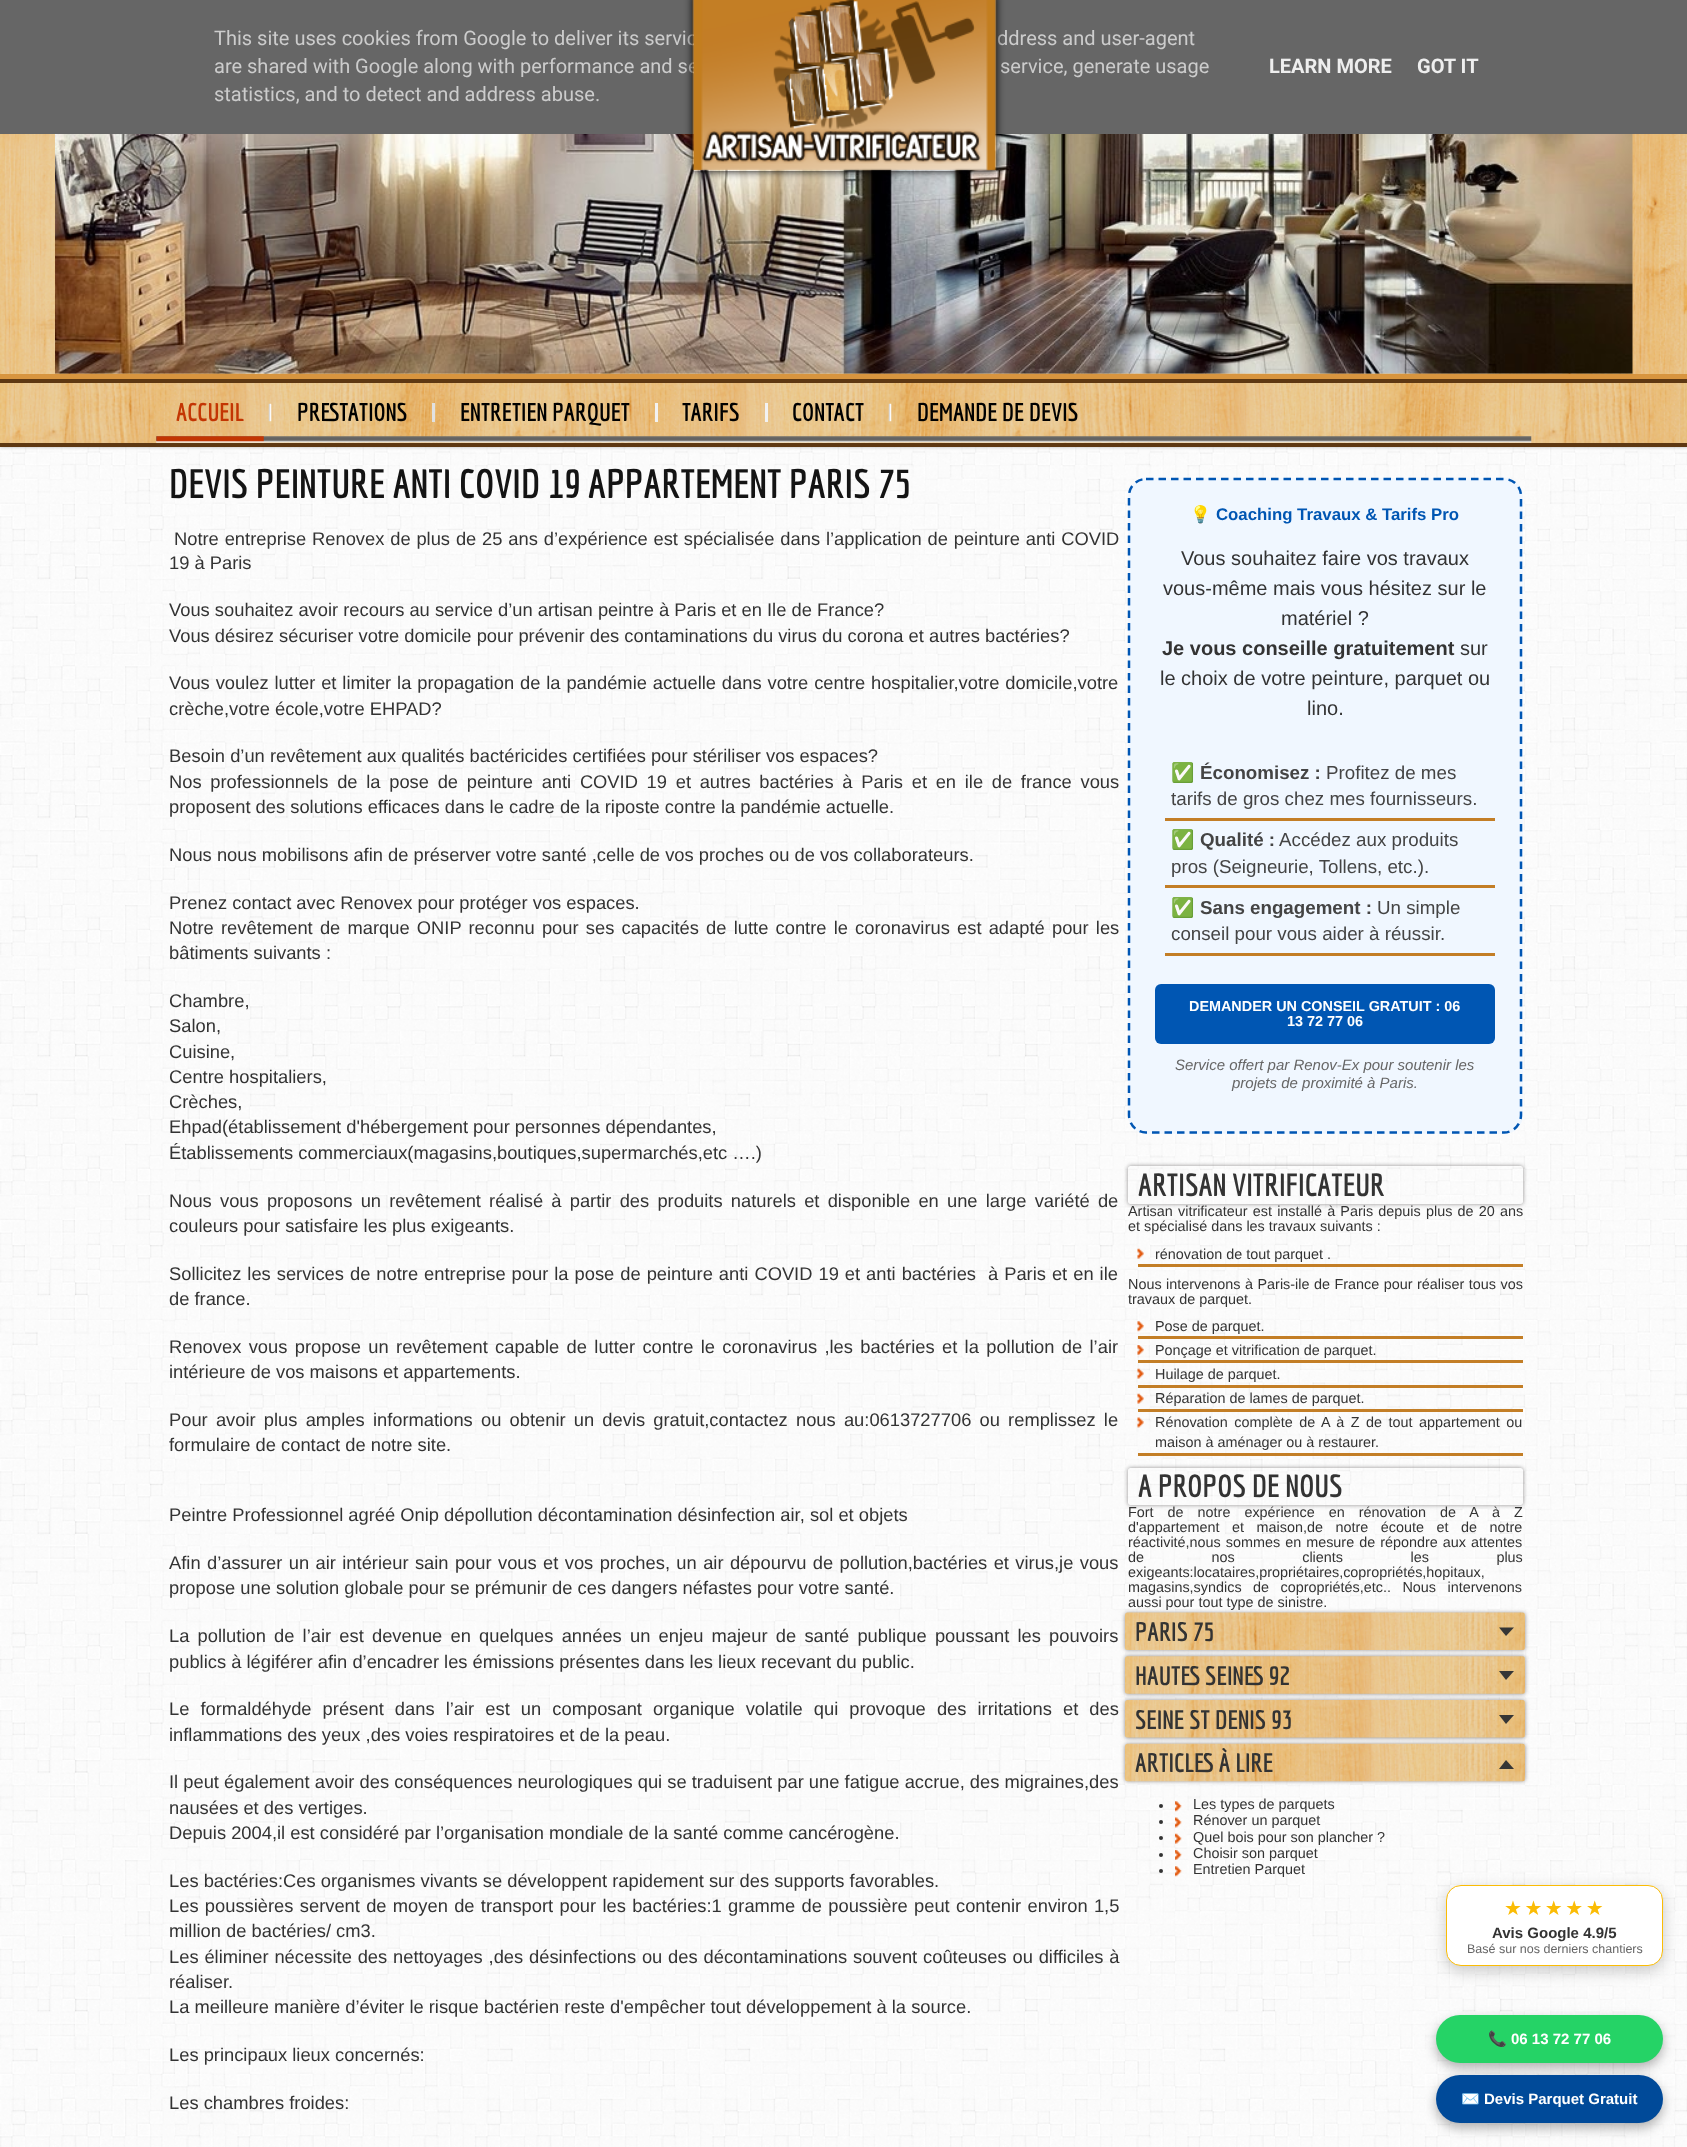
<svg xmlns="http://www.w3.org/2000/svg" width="1687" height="2147">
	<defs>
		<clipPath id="clip1"><path d="M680 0H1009V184H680ZM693-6H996V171H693Z" clip-rule="evenodd" /></clipPath>
		<clipPath id="clip2"><path d="M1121 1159H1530V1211H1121ZM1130.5 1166H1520.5C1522 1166 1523 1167 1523 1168.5V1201.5C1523 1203 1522 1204 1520.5 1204H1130.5C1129 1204 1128 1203 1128 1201.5V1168.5C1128 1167 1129 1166 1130.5 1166Z" clip-rule="evenodd" /></clipPath>
		<clipPath id="clip3"><path d="M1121 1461H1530V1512H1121ZM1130.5 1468H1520.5C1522 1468 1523 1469 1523 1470.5V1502.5C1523 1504 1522 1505 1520.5 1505H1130.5C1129 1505 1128 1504 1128 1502.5V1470.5C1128 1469 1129 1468 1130.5 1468Z" clip-rule="evenodd" /></clipPath>
	</defs>
	<rect width="100%" height="100%" fill="#FFFFFF" />
	<image x="0" y="447" width="1687" height="1700" href="assets/img1.png" />
	<rect x="0" y="0" width="1687" height="134" fill="#666666" />
	<g font-family="Roboto" font-size="20" fill="#CCCCCC">
		<text x="214" y="45">This site uses cookies from Google to deliver its servic</text>
		<text x="997" y="45">ddress and user-agent</text>
		<text x="214" y="73">are shared with Google along with performance and se</text>
		<text x="1000" y="73">service, generate usage</text>
		<text x="214" y="101">statistics, and to detect and address abuse.</text>
	</g>
	<g font-family="Roboto" font-size="20" font-weight="700" fill="#EEEEEE">
		<text x="1269" y="73">LEARN MORE</text>
		<text x="1417" y="73">GOT IT</text>
	</g>
	<rect x="0" y="379" width="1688" height="67" fill="#8F8D8D" filter="blur(2px)" />
	<image x="0" y="134" width="1687" height="240" href="assets/img3.png" />
	<image x="55" y="134" width="1578" height="240" href="assets/img4.png" />
	<g clip-path="url(#clip1)">
		<rect x="693" y="-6" width="303" height="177" fill="#000000" filter="blur(4px)" />
	</g>
	<image x="692" y="0" width="305" height="171" href="assets/img2.png" />
	<rect x="0" y="374" width="1687" height="5" fill="#D8953F" />
	<image x="0" y="383" width="1687" height="60" href="assets/img5.png" />
	<rect x="0" y="379" width="1687" height="4" fill="#5E3812" />
	<rect x="0" y="443" width="1687" height="4" fill="#5E3812" />
	<image x="156" y="436" width="1376" height="7" href="assets/img6.png" />
	<image x="156" y="436" width="108" height="7" href="assets/img7.png" />
	<text x="176" y="421" font-family="Economica" font-size="25" font-weight="700" fill="#C33503">ACCUEIL</text>
	<image x="268" y="403" width="4" height="19" href="assets/img8.png" />
	<text x="297" y="421" font-family="Economica" font-size="25" font-weight="700" fill="#000000">PRESTATIONS</text>
	<rect x="432" y="403" width="3" height="19" fill="#E1E1E1" />
	<text x="460" y="421" font-family="Economica" font-size="25" font-weight="700" fill="#000000">ENTRETIEN PARQUET</text>
	<rect x="655" y="403" width="3" height="19" fill="#F2F2F2" />
	<text x="682" y="421" font-family="Economica" font-size="25" font-weight="700" fill="#000000">TARIFS</text>
	<rect x="765" y="403" width="3" height="19" fill="#F2F2F2" />
	<text x="792" y="421" font-family="Economica" font-size="25" font-weight="700" fill="#000000">CONTACT</text>
	<image x="888" y="403" width="4" height="19" href="assets/img9.png" />
	<text x="917" y="421" font-family="Economica" font-size="25" font-weight="700" fill="#000000">DEMANDE DE DEVIS</text>
	<text x="169" y="498" font-family="Economica" font-size="40" font-weight="700" fill="#141414">DEVIS PEINTURE ANTI COVID 19 APPARTEMENT PARIS 75</text>
	<g font-family="Liberation Sans" font-size="18.33" fill="#333333">
		<text x="174" y="545" word-spacing="0.75">Notre entreprise Renovex de plus de 25 ans d’expérience est spécialisée dans l’application de peinture anti COVID</text>
		<text x="169" y="569">19 à Paris</text>
		<text x="169" y="616">Vous souhaitez avoir recours au service d’un artisan peintre à Paris et en Ile de France?</text>
		<text x="169" y="642">Vous désirez sécuriser votre domicile pour prévenir des contaminations du virus du corona et autres bactéries?</text>
		<text x="169" y="689" word-spacing="0.8">Vous voulez lutter et limiter la propagation de la pandémie actuelle dans votre centre hospitalier,votre domicile,votre</text>
		<text x="169" y="715">crèche,votre école,votre EHPAD?</text>
		<text x="169" y="762">Besoin d’un revêtement aux qualités bactéricides certifiées pour stériliser vos espaces?</text>
		<text x="169" y="788" word-spacing="3.6">Nos professionnels de la pose de peinture anti COVID 19 et autres bactéries à Paris et en ile de france vous</text>
		<text x="169" y="813">proposent des solutions efficaces dans le cadre de la riposte contre la pandémie actuelle.</text>
		<text x="169" y="861">Nous nous mobilisons afin de préserver votre santé ,celle de vos proches ou de vos collaborateurs.</text>
		<text x="169" y="909">Prenez contact avec Renovex pour protéger vos espaces.</text>
		<text x="169" y="934" word-spacing="2.1">Notre revêtement de marque ONIP reconnu pour ses capacités de lutte contre le coronavirus est adapté pour les</text>
		<text x="169" y="959">bâtiments suivants :</text>
		<text x="169" y="1007">Chambre,</text>
		<text x="169" y="1032">Salon,</text>
		<text x="169" y="1058">Cuisine,</text>
		<text x="169" y="1083">Centre hospitaliers,</text>
		<text x="169" y="1108">Crèches,</text>
		<text x="169" y="1133">Ehpad(établissement d'hébergement pour personnes dépendantes,</text>
		<text x="169" y="1159">Établissements commerciaux(magasins,boutiques,supermarchés,etc ….)</text>
		<text x="169" y="1207" word-spacing="3.1">Nous vous proposons un revêtement réalisé à partir des produits naturels et disponible en une large variété de</text>
		<text x="169" y="1232">couleurs pour satisfaire les plus exigeants.</text>
		<text x="169" y="1280" word-spacing="0.9" xml:space="preserve">Sollicitez les services de notre entreprise pour la pose de peinture anti COVID 19 et anti bactéries  à Paris et en ile</text>
		<text x="169" y="1305">de france.</text>
		<text x="169" y="1353" word-spacing="2.25">Renovex vous propose un revêtement capable de lutter contre le coronavirus ,les bactéries et la pollution de l’air</text>
		<text x="169" y="1378">intérieure de vos maisons et appartements.</text>
		<text x="169" y="1426" word-spacing="3.1">Pour avoir plus amples informations ou obtenir un devis gratuit,contactez nous au:0613727706 ou remplissez le</text>
		<text x="169" y="1451">formulaire de contact de notre site.</text>
		<text x="169" y="1521">Peintre Professionnel agréé Onip dépollution décontamination désinfection air, sol et objets</text>
		<text x="169" y="1569" word-spacing="1.3">Afin d’assurer un air intérieur sain pour vous et vos proches, un air dépourvu de pollution,bactéries et virus,je vous</text>
		<text x="169" y="1594">propose une solution globale pour se prémunir de ces dangers néfastes pour votre santé.</text>
		<text x="169" y="1642" word-spacing="3.1">La pollution de l’air est devenue en quelques années un enjeu majeur de santé publique poussant les pouvoirs</text>
		<text x="169" y="1668">publics à légiférer afin d’encadrer les émissions présentes dans les lieux recevant du public.</text>
		<text x="169" y="1715" word-spacing="6">Le formaldéhyde présent dans l’air est un composant organique volatile qui provoque des irritations et des</text>
		<text x="169" y="1741">inflammations des yeux ,des voies respiratoires et de la peau.</text>
		<text x="169" y="1788">Il peut également avoir des conséquences neurologiques qui se traduisent par une fatigue accrue, des migraines,des</text>
		<text x="169" y="1814">nausées et des vertiges.</text>
		<text x="169" y="1839">Depuis 2004,il est considéré par l’organisation mondiale de la santé comme cancérogène.</text>
		<text x="169" y="1887">Les bactéries:Ces organismes vivants se développent rapidement sur des supports favorables.</text>
		<text x="169" y="1912" word-spacing="1.2">Les poussières servent de moyen de transport pour les bactéries:1 gramme de poussière peut contenir environ 1,5</text>
		<text x="169" y="1937">million de bactéries/ cm3.</text>
		<text x="169" y="1963" word-spacing="0.75">Les éliminer nécessite des nettoyages ,des désinfections ou des décontaminations souvent coûteuses ou difficiles à</text>
		<text x="169" y="1988">réaliser.</text>
		<text x="169" y="2013">La meilleure manière d’éviter le risque bactérien reste d'empêcher tout développement à la source.</text>
		<text x="169" y="2061">Les principaux lieux concernés:</text>
		<text x="169" y="2109">Les chambres froides:</text>
	</g>
	<rect x="1128" y="478" width="395" height="656" rx="19" fill="#F0F7FF" />
	<path d="M1146 479H1504C1513.5 479 1521 486.5 1521 496V1115C1521 1124.5 1513.5 1132.5 1504 1132.5H1146C1136.5 1132.5 1129 1124.5 1129 1115V496C1129 486.5 1136.5 479 1146 479Z" fill="none" stroke="#0056B3" stroke-width="2.5" stroke-dasharray="7.5 5" />
	<text x="1190" y="520" font-family="Noto Color Emoji" font-size="16.8" font-weight="700" fill="#0056B3">💡</text>
	<text x="1216" y="520" font-family="Liberation Sans" font-size="16.8" font-weight="700" fill="#0056B3">Coaching Travaux &amp; Tarifs Pro</text>
	<g font-family="Liberation Sans" font-size="20" fill="#333333">
		<text x="1181" y="565">Vous souhaitez faire vos travaux</text>
		<text x="1163" y="595">vous-même mais vous hésitez sur le</text>
		<text x="1281" y="625">matériel ?</text>
	</g>
	<text x="1162" y="655" font-family="Liberation Sans" font-size="20" font-weight="700" fill="#333333">Je vous conseille gratuitement</text>
	<g font-family="Liberation Sans" font-size="20" fill="#333333">
		<text x="1460" y="655">sur</text>
		<text x="1160" y="685">le choix de votre peinture, parquet ou</text>
		<text x="1307" y="715">lino.</text>
	</g>
	<rect x="1165" y="818" width="330" height="3" fill="#C37E26" />
	<text x="1171" y="779" font-family="Noto Color Emoji" font-size="18.75" fill="#444444">✅</text>
	<text x="1200" y="779" font-family="Liberation Sans" font-size="18.75" font-weight="700" fill="#444444">Économisez :</text>
	<g font-family="Liberation Sans" font-size="18.75" fill="#444444">
		<text x="1326" y="779">Profitez de mes</text>
		<text x="1171" y="805">tarifs de gros chez mes fournisseurs.</text>
	</g>
	<rect x="1165" y="885" width="330" height="3" fill="#C37E26" />
	<text x="1171" y="846" font-family="Noto Color Emoji" font-size="18.75" fill="#444444">✅</text>
	<text x="1200" y="846" font-family="Liberation Sans" font-size="18.75" font-weight="700" fill="#444444">Qualité :</text>
	<g font-family="Liberation Sans" font-size="18.75" fill="#444444">
		<text x="1279" y="846">Accédez aux produits</text>
		<text x="1171" y="873">pros (Seigneurie, Tollens, etc.).</text>
	</g>
	<rect x="1165" y="953" width="330" height="3" fill="#C37E26" />
	<text x="1171" y="914" font-family="Noto Color Emoji" font-size="18.75" fill="#444444">✅</text>
	<text x="1200" y="914" font-family="Liberation Sans" font-size="18.75" font-weight="700" fill="#444444">Sans engagement :</text>
	<g font-family="Liberation Sans" font-size="18.75" fill="#444444">
		<text x="1377" y="914">Un simple</text>
		<text x="1171" y="940">conseil pour vous aider à réussir.</text>
	</g>
	<rect x="1155" y="984" width="340" height="60" rx="6" fill="#0056B3" />
	<g font-family="Liberation Sans" font-size="14.4" font-weight="700" fill="#FFFFFF">
		<text x="1189" y="1011">DEMANDER UN CONSEIL GRATUIT : 06</text>
		<text x="1287" y="1026">13 72 77 06</text>
	</g>
	<g font-family="Liberation Sans" font-size="15" font-style="italic" fill="#666666">
		<text x="1175" y="1070">Service offert par Renov-Ex pour soutenir les</text>
		<text x="1232" y="1088">projets de proximité à Paris.</text>
	</g>
	<g clip-path="url(#clip2)">
		<rect x="1128" y="1166" width="395" height="38" rx="2.5" fill="#8F8D8D" filter="blur(2px)" />
	</g>
	<text x="1138" y="1196" font-family="Economica" font-size="31.25" font-weight="700" fill="#333333">ARTISAN VITRIFICATEUR</text>
	<g font-family="Liberation Sans" font-size="14.4" fill="#333333">
		<text x="1128" y="1216" word-spacing="1.2">Artisan vitrificateur est installé à Paris depuis plus de 20 ans</text>
		<text x="1128" y="1231">et spécialisé dans les travaux suivants :</text>
	</g>
	<image x="1137" y="1248" width="7" height="11" href="assets/img10.png" />
	<rect x="1138" y="1264" width="385" height="3" fill="#C37E26" />
	<g font-family="Liberation Sans" font-size="14.4" fill="#333333">
		<text x="1155" y="1259">rénovation de tout parquet .</text>
		<text x="1128" y="1289" word-spacing="0.5">Nous intervenons à Paris-ile de France pour réaliser tous vos</text>
		<text x="1128" y="1304">travaux de parquet.</text>
	</g>
	<image x="1137" y="1321" width="7" height="11" href="assets/img11.png" />
	<rect x="1138" y="1336" width="385" height="3" fill="#C37E26" />
	<text x="1155" y="1331" font-family="Liberation Sans" font-size="14.4" fill="#333333">Pose de parquet.</text>
	<image x="1137" y="1345" width="7" height="10" href="assets/img12.png" />
	<rect x="1138" y="1360" width="385" height="3" fill="#C37E26" />
	<text x="1155" y="1355" font-family="Liberation Sans" font-size="14.4" fill="#333333">Ponçage et vitrification de parquet.</text>
	<image x="1137" y="1368" width="7" height="11" href="assets/img13.png" />
	<rect x="1138" y="1385" width="385" height="3" fill="#C37E26" />
	<text x="1155" y="1379" font-family="Liberation Sans" font-size="14.4" fill="#333333">Huilage de parquet.</text>
	<image x="1137" y="1393" width="7" height="11" href="assets/img14.png" />
	<rect x="1138" y="1409" width="385" height="3" fill="#C37E26" />
	<text x="1155" y="1403" font-family="Liberation Sans" font-size="14.4" fill="#333333">Réparation de lames de parquet.</text>
	<image x="1137" y="1417" width="7" height="11" href="assets/img15.png" />
	<rect x="1138" y="1453" width="385" height="3" fill="#C37E26" />
	<g font-family="Liberation Sans" font-size="14.4" fill="#333333">
		<text x="1155" y="1427" word-spacing="2.5">Rénovation complète de A à Z de tout appartement ou</text>
		<text x="1155" y="1447">maison à aménager ou à restaurer.</text>
	</g>
	<g clip-path="url(#clip3)">
		<rect x="1128" y="1468" width="395" height="37" rx="2.5" fill="#8F8D8D" filter="blur(2px)" />
	</g>
	<text x="1138" y="1497" font-family="Economica" font-size="31.25" font-weight="700" fill="#333333">A PROPOS DE NOUS</text>
	<g font-family="Liberation Sans" font-size="14.4" fill="#333333">
		<text x="1128" y="1517" word-spacing="10">Fort de notre expérience en rénovation de A à Z</text>
		<text x="1128" y="1532" word-spacing="8.5">d'appartement et maison,de notre écoute et de notre</text>
		<text x="1128" y="1547" word-spacing="1">réactivité,nous sommes en mesure de répondre aux attentes</text>
		<text x="1128" y="1562" word-spacing="63.5">de nos clients les plus</text>
		<text x="1128" y="1577">exigeants:locataires,propriétaires,copropriétés,hopitaux,</text>
		<text x="1128" y="1592" word-spacing="7.5">magasins,syndics de copropriétés,etc.. Nous intervenons</text>
		<text x="1128" y="1607">aussi pour tout type de sinistre.</text>
	</g>
	<rect x="1125" y="1613" width="400" height="37" rx="2.5" fill="#8F8D8D" filter="blur(2px)" />
	<image x="1125" y="1612" width="400" height="38" href="assets/img16.png" />
	<text x="1135" y="1641" font-family="Economica" font-size="26" font-weight="700" fill="#333333">PARIS 75</text>
	<path d="M1499 1627.5H1514L1506 1636Z" fill="#363636" />
	<rect x="1125" y="1656" width="400" height="38" rx="2.5" fill="#8F8D8D" filter="blur(2px)" />
	<image x="1125" y="1656" width="400" height="38" href="assets/img17.png" />
	<text x="1135" y="1685" font-family="Economica" font-size="26" font-weight="700" fill="#333333">HAUTES SEINES 92</text>
	<path d="M1499 1671H1514L1506 1680Z" fill="#363636" />
	<rect x="1125" y="1700" width="400" height="38" rx="2.5" fill="#8F8D8D" filter="blur(2px)" />
	<image x="1125" y="1700" width="400" height="38" href="assets/img18.png" />
	<text x="1135" y="1729" font-family="Economica" font-size="26" font-weight="700" fill="#333333">SEINE ST DENIS 93</text>
	<path d="M1499 1715H1514L1506 1724Z" fill="#363636" />
	<rect x="1125" y="1744" width="400" height="37" rx="2.5" fill="#8F8D8D" filter="blur(2px)" />
	<image x="1125" y="1743" width="401" height="39" href="assets/img19.png" />
	<text x="1135" y="1772" font-family="Economica" font-size="26" font-weight="700" fill="#333333">ARTICLES À LIRE</text>
	<path d="M1514 1769H1499L1506 1760Z" fill="#363636" />
	<image x="1175" y="1801" width="7" height="11" href="assets/img20.png" />
	<circle cx="1161" cy="1806" r="2" fill="#333333" />
	<text x="1193" y="1809" font-family="Liberation Sans" font-size="14.4" fill="#333333">Les types de parquets</text>
	<image x="1175" y="1817" width="7" height="11" href="assets/img21.png" />
	<circle cx="1161" cy="1822" r="2" fill="#333333" />
	<text x="1193" y="1825" font-family="Liberation Sans" font-size="14.4" fill="#333333">Rénover un parquet</text>
	<image x="1175" y="1833" width="7" height="11" href="assets/img22.png" />
	<circle cx="1161" cy="1838" r="2" fill="#333333" />
	<text x="1193" y="1842" font-family="Liberation Sans" font-size="14.4" fill="#333333">Quel bois pour son plancher ?</text>
	<image x="1175" y="1850" width="7" height="10" href="assets/img23.png" />
	<circle cx="1161" cy="1855" r="2" fill="#333333" />
	<text x="1193" y="1858" font-family="Liberation Sans" font-size="14.4" fill="#333333">Choisir son parquet</text>
	<image x="1175" y="1866" width="7" height="11" href="assets/img24.png" />
	<circle cx="1161" cy="1871" r="2" fill="#333333" />
	<text x="1193" y="1874" font-family="Liberation Sans" font-size="14.4" fill="#333333">Entretien Parquet</text>
	<rect x="1446" y="1890" width="217" height="81" rx="15" fill="#000000" fill-opacity="0.2" filter="blur(7.5px)" />
	<rect x="1446.5" y="1885.5" width="216" height="80" rx="14.5" fill="#FFFFFF" stroke="#FBBC05" />
	<text x="1504" y="1915" font-family="DejaVu Sans" font-size="20" letter-spacing="2.5" fill="#FBBC05">★★★★★</text>
	<text x="1492" y="1938" font-family="Liberation Sans" font-size="15" font-weight="700" fill="#333333">Avis Google 4.9/5</text>
	<text x="1467" y="1953" font-family="Liberation Sans" font-size="12.5" fill="#666666">Basé sur nos derniers chantiers</text>
	<rect x="1436" y="2020" width="227" height="48" rx="24" fill="#000000" fill-opacity="0.3" filter="blur(6px)" />
	<rect x="1436" y="2015" width="227" height="48" rx="24" fill="#25D366" />
	<text x="1488" y="2044" font-family="Noto Color Emoji" font-size="15" font-weight="700" fill="#FFFFFF">📞</text>
	<text x="1511" y="2044" font-family="Liberation Sans" font-size="15" font-weight="700" fill="#FFFFFF">06 13 72 77 06</text>
	<rect x="1436" y="2080" width="227" height="48" rx="24" fill="#000000" fill-opacity="0.3" filter="blur(6px)" />
	<rect x="1436" y="2075" width="227" height="48" rx="24" fill="#004A99" />
	<text x="1461" y="2104" font-family="Noto Color Emoji" font-size="15" font-weight="700" fill="#FFFFFF">✉️</text>
	<text x="1484" y="2104" font-family="Liberation Sans" font-size="15" font-weight="700" fill="#FFFFFF">Devis Parquet Gratuit</text>
</svg>
